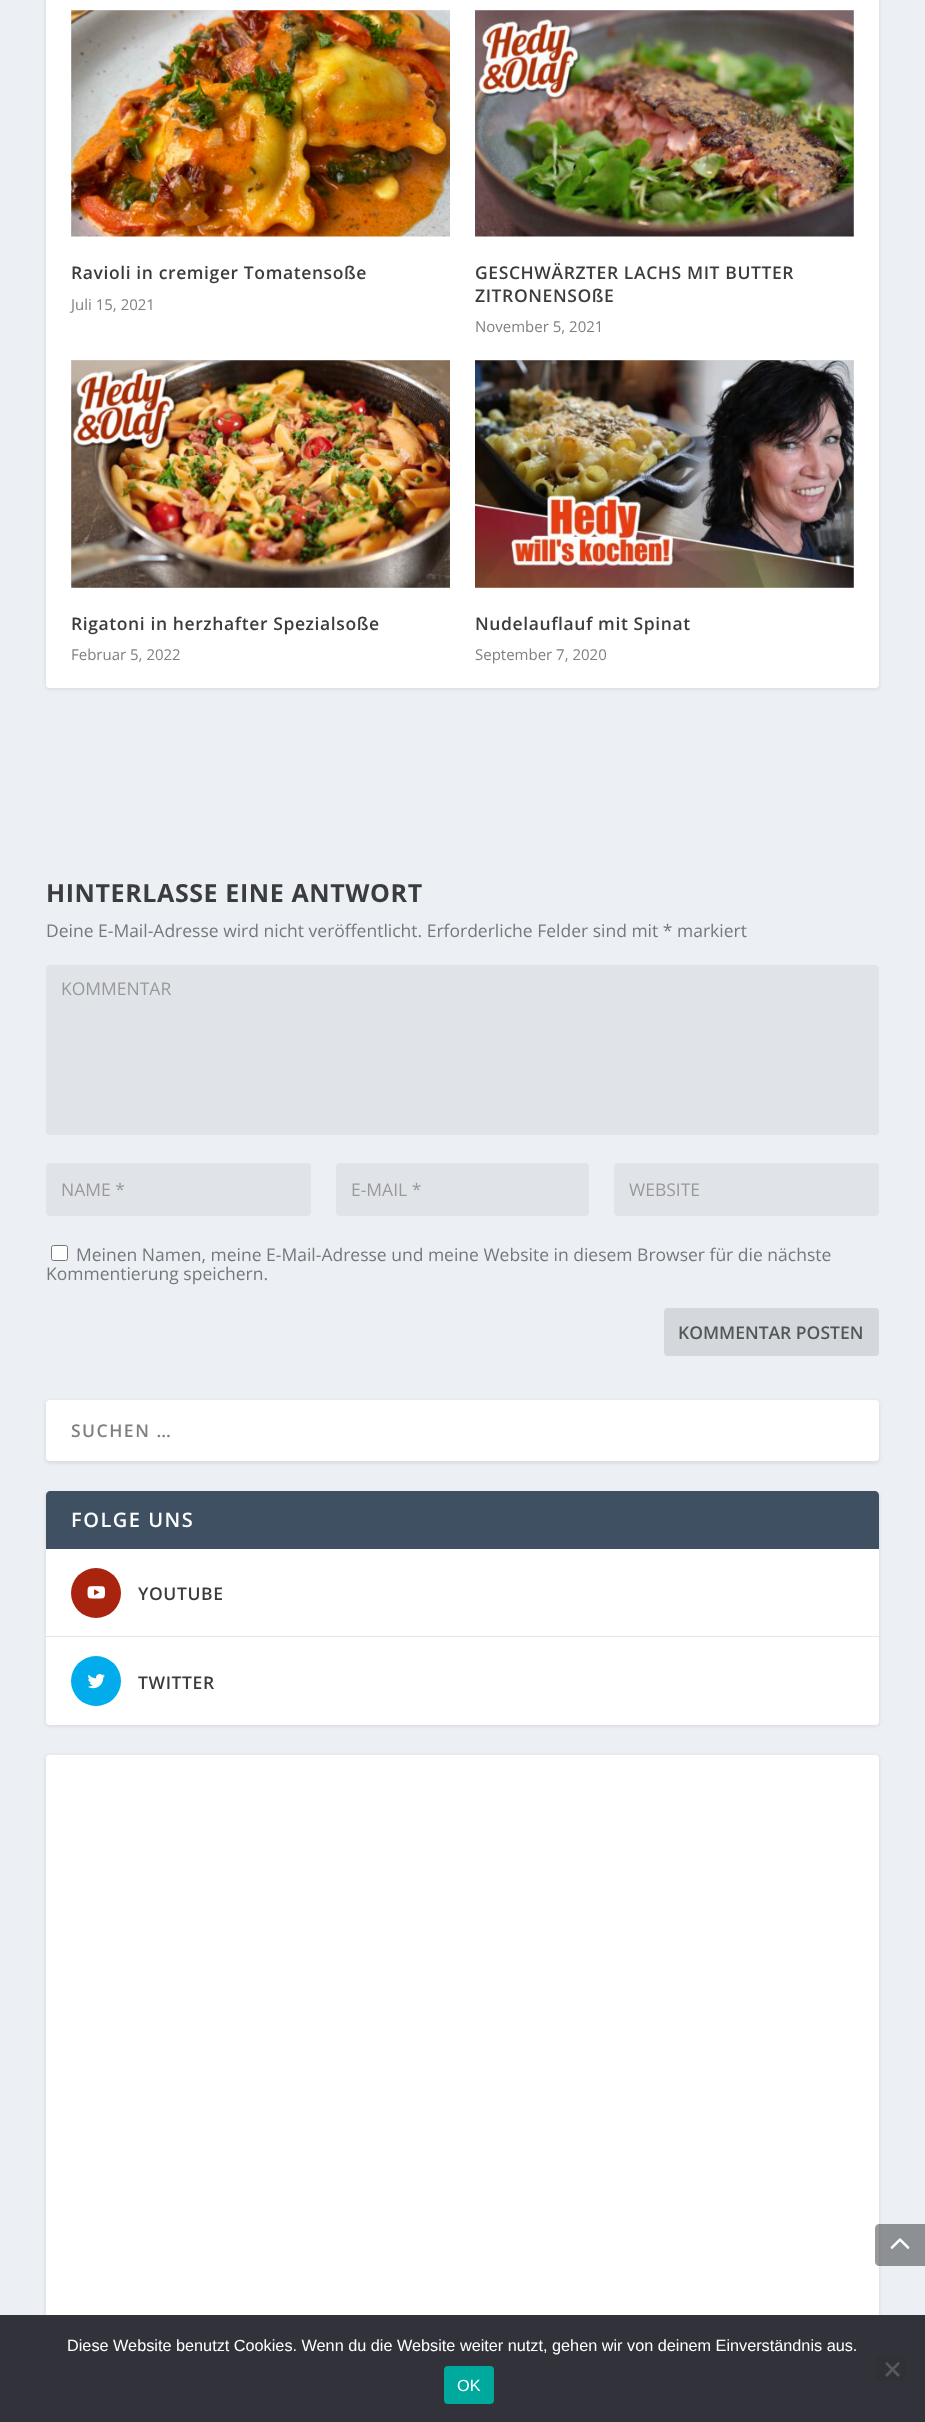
<svg xmlns="http://www.w3.org/2000/svg" width="925" height="2422">
	<rect width="100%" height="100%" fill="#ECF0F5" />
	<rect x="46" y="-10" width="833" height="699" rx="4" fill="#000000" fill-opacity="0.1" filter="blur(2px)" />
	<rect x="46" y="-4" width="833" height="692" rx="4" fill="#FFFFFF" />
	<rect x="71" y="10" width="379" height="226" fill="#E6E6E6" />
	<image x="71" y="10" width="379" height="227" href="assets/img1.png" />
	<text x="71" y="279" font-family="Open Sans" font-size="17.5" font-weight="600" letter-spacing="0.6" fill="#3B3C3D">Ravioli in cremiger Tomatensoße</text>
	<text x="71" y="310" font-family="Open Sans" font-size="15" fill="#808080">Juli 15, 2021</text>
	<rect x="475" y="10" width="379" height="226" fill="#E6E6E6" />
	<image x="475" y="10" width="379" height="227" href="assets/img2.png" />
	<g font-family="Open Sans" font-size="17.5" font-weight="600" letter-spacing="0.6" fill="#3B3C3D">
		<text x="475" y="279">GESCHWÄRZTER LACHS MIT BUTTER</text>
		<text x="475" y="302">ZITRONENSOßE</text>
	</g>
	<text x="475" y="332" font-family="Open Sans" font-size="15" fill="#808080">November 5, 2021</text>
	<rect x="71" y="360" width="379" height="228" fill="#E6E6E6" />
	<image x="71" y="360" width="379" height="228" href="assets/img3.png" />
	<text x="71" y="630" font-family="Open Sans" font-size="17.5" font-weight="600" letter-spacing="0.6" fill="#3B3C3D">Rigatoni in herzhafter Spezialsoße</text>
	<text x="71" y="660" font-family="Open Sans" font-size="15" fill="#808080">Februar 5, 2022</text>
	<rect x="475" y="360" width="379" height="228" fill="#E6E6E6" />
	<image x="475" y="360" width="379" height="228" href="assets/img4.png" />
	<text x="475" y="630" font-family="Open Sans" font-size="17.5" font-weight="600" letter-spacing="0.6" fill="#3B3C3D">Nudelauflauf mit Spinat</text>
	<text x="475" y="660" font-family="Open Sans" font-size="15" fill="#808080">September 7, 2020</text>
	<text x="46" y="902" font-family="Open Sans" font-size="25" font-weight="700" letter-spacing="0.6" fill="#3B3C3D">HINTERLASSE EINE ANTWORT</text>
	<text x="46" y="937" font-family="Open Sans" font-size="17.5" fill="#76787B">Deine E-Mail-Adresse wird nicht veröffentlicht. Erforderliche Felder sind mit * markiert</text>
	<rect x="46" y="965" width="833" height="170" rx="4" fill="#E0E4E8" />
	<text x="61" y="995" font-family="Open Sans" font-size="17.5" fill="#999999">KOMMENTAR</text>
	<rect x="46" y="1163" width="265" height="53" rx="4" fill="#E0E4E9" />
	<text x="61" y="1196" font-family="Open Sans" font-size="17.5" fill="#999999">NAME *</text>
	<rect x="336" y="1163" width="253" height="53" rx="4" fill="#E0E4E9" />
	<text x="351" y="1196" font-family="Open Sans" font-size="17.5" fill="#999999">E-MAIL *</text>
	<rect x="614" y="1163" width="265" height="53" rx="4" fill="#E0E4E9" />
	<text x="629" y="1196" font-family="Open Sans" font-size="17.5" fill="#999999">WEBSITE</text>
	<rect x="51.5" y="1245.5" width="16" height="15" rx="2" fill="#FFFFFF" stroke="#767676" />
	<g font-family="Open Sans" font-size="17.5" fill="#76787B">
		<text x="76" y="1261">Meinen Namen, meine E-Mail-Adresse und meine Website in diesem Browser für die nächste</text>
		<text x="46" y="1280">Kommentierung speichern.</text>
	</g>
	<rect x="664" y="1308" width="215" height="48" rx="4" fill="#D4D8DD" />
	<text x="678" y="1339" font-family="Open Sans" font-size="17.5" font-weight="600" fill="#555658">KOMMENTAR POSTEN</text>
	<rect x="46" y="1401" width="833" height="62" rx="4" fill="#000000" fill-opacity="0.1" filter="blur(2px)" />
	<rect x="46" y="1400" width="833" height="61" rx="4" fill="#FFFFFF" />
	<text x="71" y="1437" font-family="Open Sans" font-size="17.5" font-weight="600" letter-spacing="1.5" fill="#808080">SUCHEN …</text>
	<rect x="46" y="1493" width="833" height="233" rx="4" fill="#000000" fill-opacity="0.1" filter="blur(2px)" />
	<rect x="46" y="1491" width="833" height="234" rx="4" fill="#FFFFFF" />
	<path d="M50 1491H875C877 1491 879 1493 879 1495V1549H46V1495C46 1493 48 1491 50 1491Z" fill="#3E5062" />
	<text x="71" y="1527" font-family="Open Sans" font-size="20" font-weight="600" letter-spacing="1.5" fill="#FFFFFF">FOLGE UNS</text>
	<rect x="46" y="1636" width="833" height="1" fill="#E6E6E6" />
	<circle cx="96" cy="1593" r="25" fill="#A8240F" />
	<image x="87" y="1586" width="18" height="13" href="assets/img5.png" />
	<text x="138" y="1600" font-family="Open Sans" font-size="17.5" font-weight="600" letter-spacing="0.6" fill="#3B3C3D">YOUTUBE</text>
	<circle cx="96" cy="1681" r="25" fill="#01ACED" />
	<image x="87" y="1674" width="18" height="15" href="assets/img6.png" />
	<text x="138" y="1689" font-family="Open Sans" font-size="17.5" font-weight="600" letter-spacing="0.6" fill="#3B3C3D">TWITTER</text>
	<rect x="46" y="1756" width="833" height="575" rx="4" fill="#000000" fill-opacity="0.1" filter="blur(2px)" />
	<rect x="46" y="1755" width="833" height="575" rx="4" fill="#FFFFFF" />
	<path d="M879 2224H925V2266H879C877 2266 875 2264 875 2262V2228C875 2226 877 2224 879 2224Z" fill="#000000" fill-opacity="0.4" />
	<image x="890" y="2238" width="20" height="11" href="assets/img7.png" />
	<rect x="0" y="2315" width="925" height="107" fill="#32323A" />
	<text x="67" y="2351" font-family="Liberation Sans" font-size="16.25" fill="#FFFFFF">Diese Website benutzt Cookies. Wenn du die Website weiter nutzt, gehen wir von deinem Einverständnis aus.</text>
	<rect x="876" y="2356" width="30" height="25" rx="4" fill="#303037" />
	<path d="M898 2362L900 2363.5L887 2377L885 2375Z" fill="#59595D" />
	<path d="M885 2363.5L887 2362L900 2375L898 2377Z" fill="#59595D" />
	<rect x="444" y="2366" width="50" height="38" rx="4" fill="#00A99D" />
	<text x="457" y="2391" font-family="Liberation Sans" font-size="16.25" fill="#FFFFFF">OK</text>
</svg>
